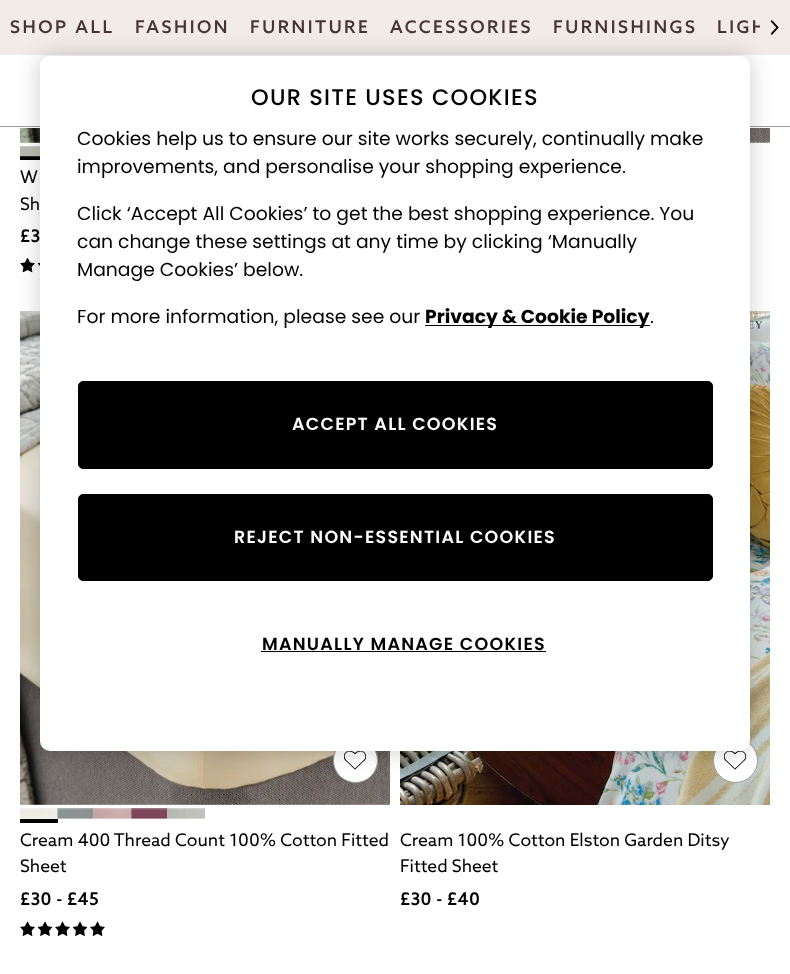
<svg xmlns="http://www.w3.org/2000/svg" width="790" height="974">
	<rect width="100%" height="100%" fill="#FFFFFF" />
	<rect x="0" y="0" width="790" height="55" fill="#F2EBE7" />
	<g font-family="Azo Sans" font-size="17.5" font-weight="600" letter-spacing="2.5" fill="#453536">
		<text x="10" y="33">SHOP ALL</text>
		<text x="135" y="33">FASHION</text>
		<text x="250" y="33">FURNITURE</text>
		<text x="390" y="33">ACCESSORIES</text>
		<text x="553" y="33">FURNISHINGS</text>
		<text x="717" y="33">LIGH</text>
	</g>
	<rect x="760" y="20" width="4" height="13" fill="#F2EBE7" />
	<image x="771" y="20" width="8" height="15" href="assets/img1.png" />
	<rect x="0" y="126" width="790" height="1" fill="#9E9E9E" />
	<image x="750" y="128" width="20" height="15" href="assets/img2.png" />
	<image x="20" y="128" width="20" height="15" href="assets/img3.png" />
	<rect x="20" y="156" width="20" height="4" fill="#000000" />
	<image x="20" y="146" width="20" height="11" href="assets/img4.png" />
	<image x="20" y="257" width="15" height="16" href="assets/img5.png" />
	<image x="37" y="262" width="3" height="4" href="assets/img6.png" />
	<image x="20" y="311" width="370" height="494" href="assets/img7.png" />
	<circle cx="355.5" cy="760.5" r="22" fill="#FFFFFF" stroke="#9E9E9E" />
	<image x="344" y="751" width="22" height="19" href="assets/img8.png" />
	<rect x="750" y="311" width="20" height="1" fill="#D1D1D1" />
	<image x="400" y="311" width="370" height="494" href="assets/img16.png" />
	<circle cx="735.5" cy="760.5" r="22" fill="#FFFFFF" stroke="#9E9E9E" />
	<image x="724" y="750" width="22" height="20" href="assets/img17.png" />
	<rect x="40" y="56" width="710" height="695" rx="10" fill="#000000" fill-opacity="0.2" filter="blur(11px)" />
	<rect x="40" y="56" width="710" height="695" rx="10" fill="#FFFFFF" />
	<text x="251" y="105" font-family="Poppins" font-size="22.5" font-weight="500" letter-spacing="1.25" fill="#000000">OUR SITE USES COOKIES</text>
	<g font-family="Poppins" font-size="18.75" fill="#000000">
		<text x="77" y="145">Cookies help us to ensure our site works securely, continually make</text>
		<text x="77" y="173">improvements, and personalise your shopping experience.</text>
		<text x="77" y="220">Click ‘Accept All Cookies’ to get the best shopping experience. You</text>
		<text x="77" y="248">can change these settings at any time by clicking ‘Manually</text>
		<text x="77" y="276">Manage Cookies’ below.</text>
		<text x="77" y="323">For more information, please see our</text>
	</g>
	<rect x="425" y="325" width="225" height="1" fill="#000000" />
	<text x="425" y="323" font-family="Poppins" font-size="18.75" font-weight="700" fill="#000000">Privacy &amp; Cookie Policy</text>
	<text x="650" y="323" font-family="Poppins" font-size="18.75" fill="#000000">.</text>
	<rect x="78.5" y="381.5" width="634" height="87" rx="4.5" fill="#000000" stroke="#000000" />
	<text x="292" y="430" font-family="Poppins" font-size="17.5" font-weight="600" letter-spacing="1.25" fill="#FFFFFF">ACCEPT ALL COOKIES</text>
	<rect x="78.5" y="494.5" width="634" height="86" rx="4.5" fill="#000000" stroke="#000000" />
	<text x="234" y="543" font-family="Poppins" font-size="17.5" font-weight="600" letter-spacing="1.25" fill="#FFFFFF">REJECT NON-ESSENTIAL COOKIES</text>
	<text x="262" y="650" font-family="Poppins" font-size="17.5" font-weight="600" letter-spacing="1.25" fill="#000000">MANUALLY MANAGE COOKIES</text>
	<rect x="261" y="651" width="285" height="1" fill="#000000" />
	<g font-family="'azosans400'" font-size="17.5" fill="#000000">
		<text x="20" y="183">W</text>
		<text x="20" y="210">Sh</text>
	</g>
	<text x="20" y="242" font-family="Azo Sans" font-size="17.5" font-weight="600" letter-spacing="0.25" fill="#000000">£3</text>
	<rect x="20" y="819" width="38" height="4" fill="#000000" />
	<image x="20" y="808" width="38" height="11" href="assets/img9.png" />
	<image x="57" y="808" width="38" height="11" href="assets/img10.png" />
	<image x="93" y="808" width="39" height="11" href="assets/img11.png" />
	<image x="131" y="808" width="38" height="11" href="assets/img12.png" />
	<image x="167" y="808" width="38" height="11" href="assets/img13.png" />
	<g font-family="'azosans400'" font-size="17.5" fill="#000000">
		<text x="20" y="846">Cream 400 Thread Count 100% Cotton Fitted</text>
		<text x="20" y="872">Sheet</text>
	</g>
	<text x="20" y="905" font-family="Azo Sans" font-size="17.5" font-weight="600" letter-spacing="0.25" fill="#000000">£30 - £45</text>
	<image x="20" y="921" width="15" height="15" href="assets/img14.png" />
	<image x="37" y="921" width="16" height="15" href="assets/img15.png" />
	<image x="55" y="921" width="15" height="15" href="assets/img14.png" />
	<image x="72" y="921" width="16" height="15" href="assets/img15.png" />
	<image x="90" y="921" width="15" height="15" href="assets/img14.png" />
	<g font-family="'azosans400'" font-size="17.5" fill="#000000">
		<text x="400" y="846">Cream 100% Cotton Elston Garden Ditsy</text>
		<text x="400" y="872">Fitted Sheet</text>
	</g>
	<text x="400" y="905" font-family="Azo Sans" font-size="17.5" font-weight="600" letter-spacing="0.25" fill="#000000">£30 - £40</text>
</svg>
